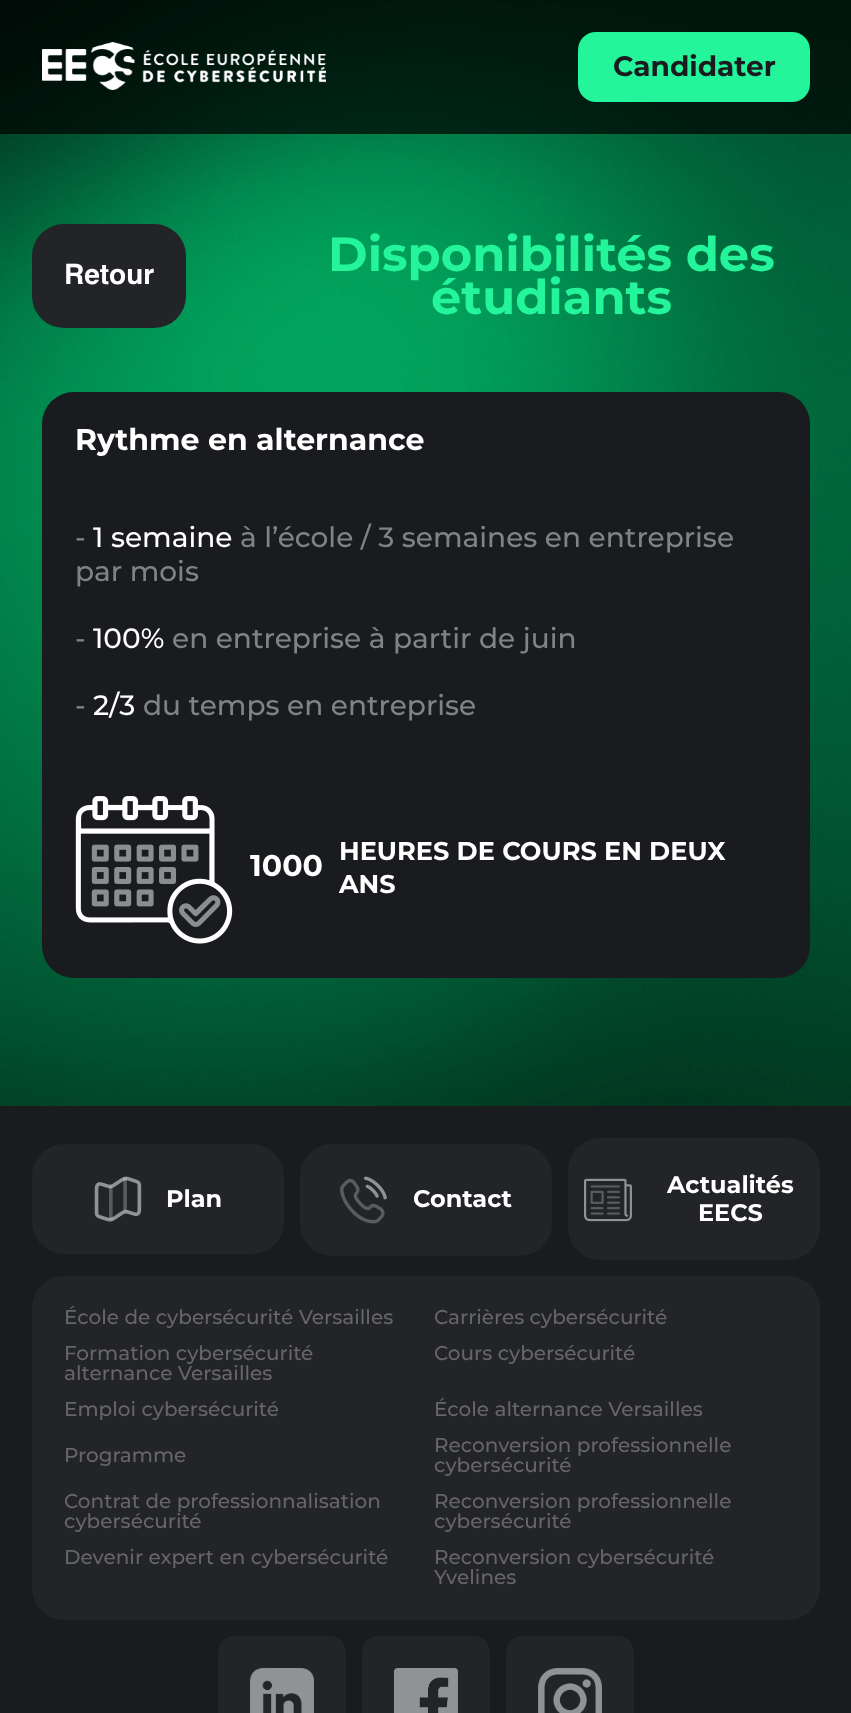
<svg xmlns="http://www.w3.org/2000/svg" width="851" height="1713">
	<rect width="100%" height="100%" fill="#FFFFFF" />
	<image x="0" y="0" width="851" height="1106" href="assets/img1.png" />
	<rect x="0" y="0" width="851" height="134" fill="#000000" fill-opacity="0.7" />
	<image x="42" y="42" width="284" height="48" href="assets/img2.png" />
	<rect x="578" y="32" width="232" height="70" rx="18" fill="#24F49A" />
	<text x="613" y="76" font-family="Montserrat" font-size="28" font-weight="700" fill="#191B1F">Candidater</text>
	<rect x="32" y="224" width="154" height="104" rx="32" fill="#222428" />
	<text x="64" y="284" font-family="Helvetica" font-size="28" font-weight="700" fill="#FFFFFF">Retour</text>
	<g font-family="Montserrat" font-size="48" font-weight="700" fill="#24F49A">
		<text x="328" y="271">Disponibilités des</text>
		<text x="431" y="314">étudiants</text>
	</g>
	<rect x="42" y="392" width="768" height="586" rx="32" fill="#191B1F" />
	<text x="75" y="450" font-family="Montserrat" font-size="30" font-weight="700" fill="#FFFFFF">Rythme en alternance</text>
	<text x="75" y="547" font-family="Montserrat" font-size="28" font-weight="500" fill="#818284">-</text>
	<text x="93" y="547" font-family="Montserrat" font-size="28" font-weight="500" fill="#FFFFFF">1 semaine</text>
	<g font-family="Montserrat" font-size="28" font-weight="500" fill="#818284">
		<text x="240" y="547">à l’école / 3 semaines en entreprise</text>
		<text x="75" y="581">par mois</text>
		<text x="75" y="648">-</text>
	</g>
	<text x="93" y="648" font-family="Montserrat" font-size="28" font-weight="500" fill="#FFFFFF">100%</text>
	<g font-family="Montserrat" font-size="28" font-weight="500" fill="#818284">
		<text x="172" y="648">en entreprise à partir de juin</text>
		<text x="75" y="715">-</text>
	</g>
	<text x="93" y="715" font-family="Montserrat" font-size="28" font-weight="500" fill="#FFFFFF">2/3</text>
	<text x="143" y="715" font-family="Montserrat" font-size="28" font-weight="500" fill="#818284">du temps en entreprise</text>
	<image x="75" y="796" width="158" height="148" href="assets/img3.png" />
	<text x="250" y="876" font-family="Montserrat" font-size="30" font-weight="700" fill="#FFFFFF">1000</text>
	<g font-family="Montserrat" font-size="25.6" font-weight="700" fill="#FFFFFF">
		<text x="339" y="860">HEURES DE COURS EN DEUX</text>
		<text x="339" y="893">ANS</text>
	</g>
	<rect x="0" y="1106" width="851" height="607" fill="#191B1F" />
	<rect x="32" y="1144" width="252" height="110" rx="32" fill="#222428" />
	<image x="94" y="1176" width="48" height="46" href="assets/img4.png" />
	<text x="166" y="1207" font-family="Montserrat" font-size="24" font-weight="700" fill="#FFFFFF">Plan</text>
	<rect x="300" y="1144" width="252" height="112" rx="32" fill="#222428" />
	<image x="340" y="1176" width="47" height="48" href="assets/img5.png" />
	<text x="413" y="1207" font-family="Montserrat" font-size="24" font-weight="700" fill="#FFFFFF">Contact</text>
	<rect x="568" y="1138" width="252" height="122" rx="32" fill="#222428" />
	<image x="584" y="1178" width="48" height="44" href="assets/img6.png" />
	<g font-family="Montserrat" font-size="24" font-weight="700" fill="#FFFFFF">
		<text x="667" y="1193">Actualités</text>
		<text x="698" y="1221">EECS</text>
	</g>
	<rect x="32" y="1276" width="788" height="344" rx="32" fill="#222428" />
	<g font-family="Montserrat" font-size="20" font-weight="500" fill="#666666">
		<text x="64" y="1324">École de cybersécurité Versailles</text>
		<text x="434" y="1324">Carrières cybersécurité</text>
		<text x="64" y="1360">Formation cybersécurité</text>
		<text x="64" y="1380">alternance Versailles</text>
		<text x="434" y="1360">Cours cybersécurité</text>
		<text x="64" y="1416">Emploi cybersécurité</text>
		<text x="434" y="1416">École alternance Versailles</text>
		<text x="64" y="1462">Programme</text>
		<text x="434" y="1452">Reconversion professionnelle</text>
		<text x="434" y="1472">cybersécurité</text>
		<text x="64" y="1508">Contrat de professionnalisation</text>
		<text x="64" y="1528">cybersécurité</text>
		<text x="434" y="1508">Reconversion professionnelle</text>
		<text x="434" y="1528">cybersécurité</text>
		<text x="64" y="1564">Devenir expert en cybersécurité</text>
		<text x="434" y="1564">Reconversion cybersécurité</text>
		<text x="434" y="1584">Yvelines</text>
	</g>
	<rect x="218" y="1636" width="128" height="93" rx="16" fill="#222428" />
	<image x="250" y="1668" width="64" height="45" href="assets/img7.png" />
	<rect x="362" y="1636" width="128" height="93" rx="16" fill="#222428" />
	<image x="394" y="1668" width="64" height="45" href="assets/img8.png" />
	<rect x="506" y="1636" width="128" height="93" rx="16" fill="#222428" />
	<image x="538" y="1668" width="64" height="45" href="assets/img9.png" />
</svg>
